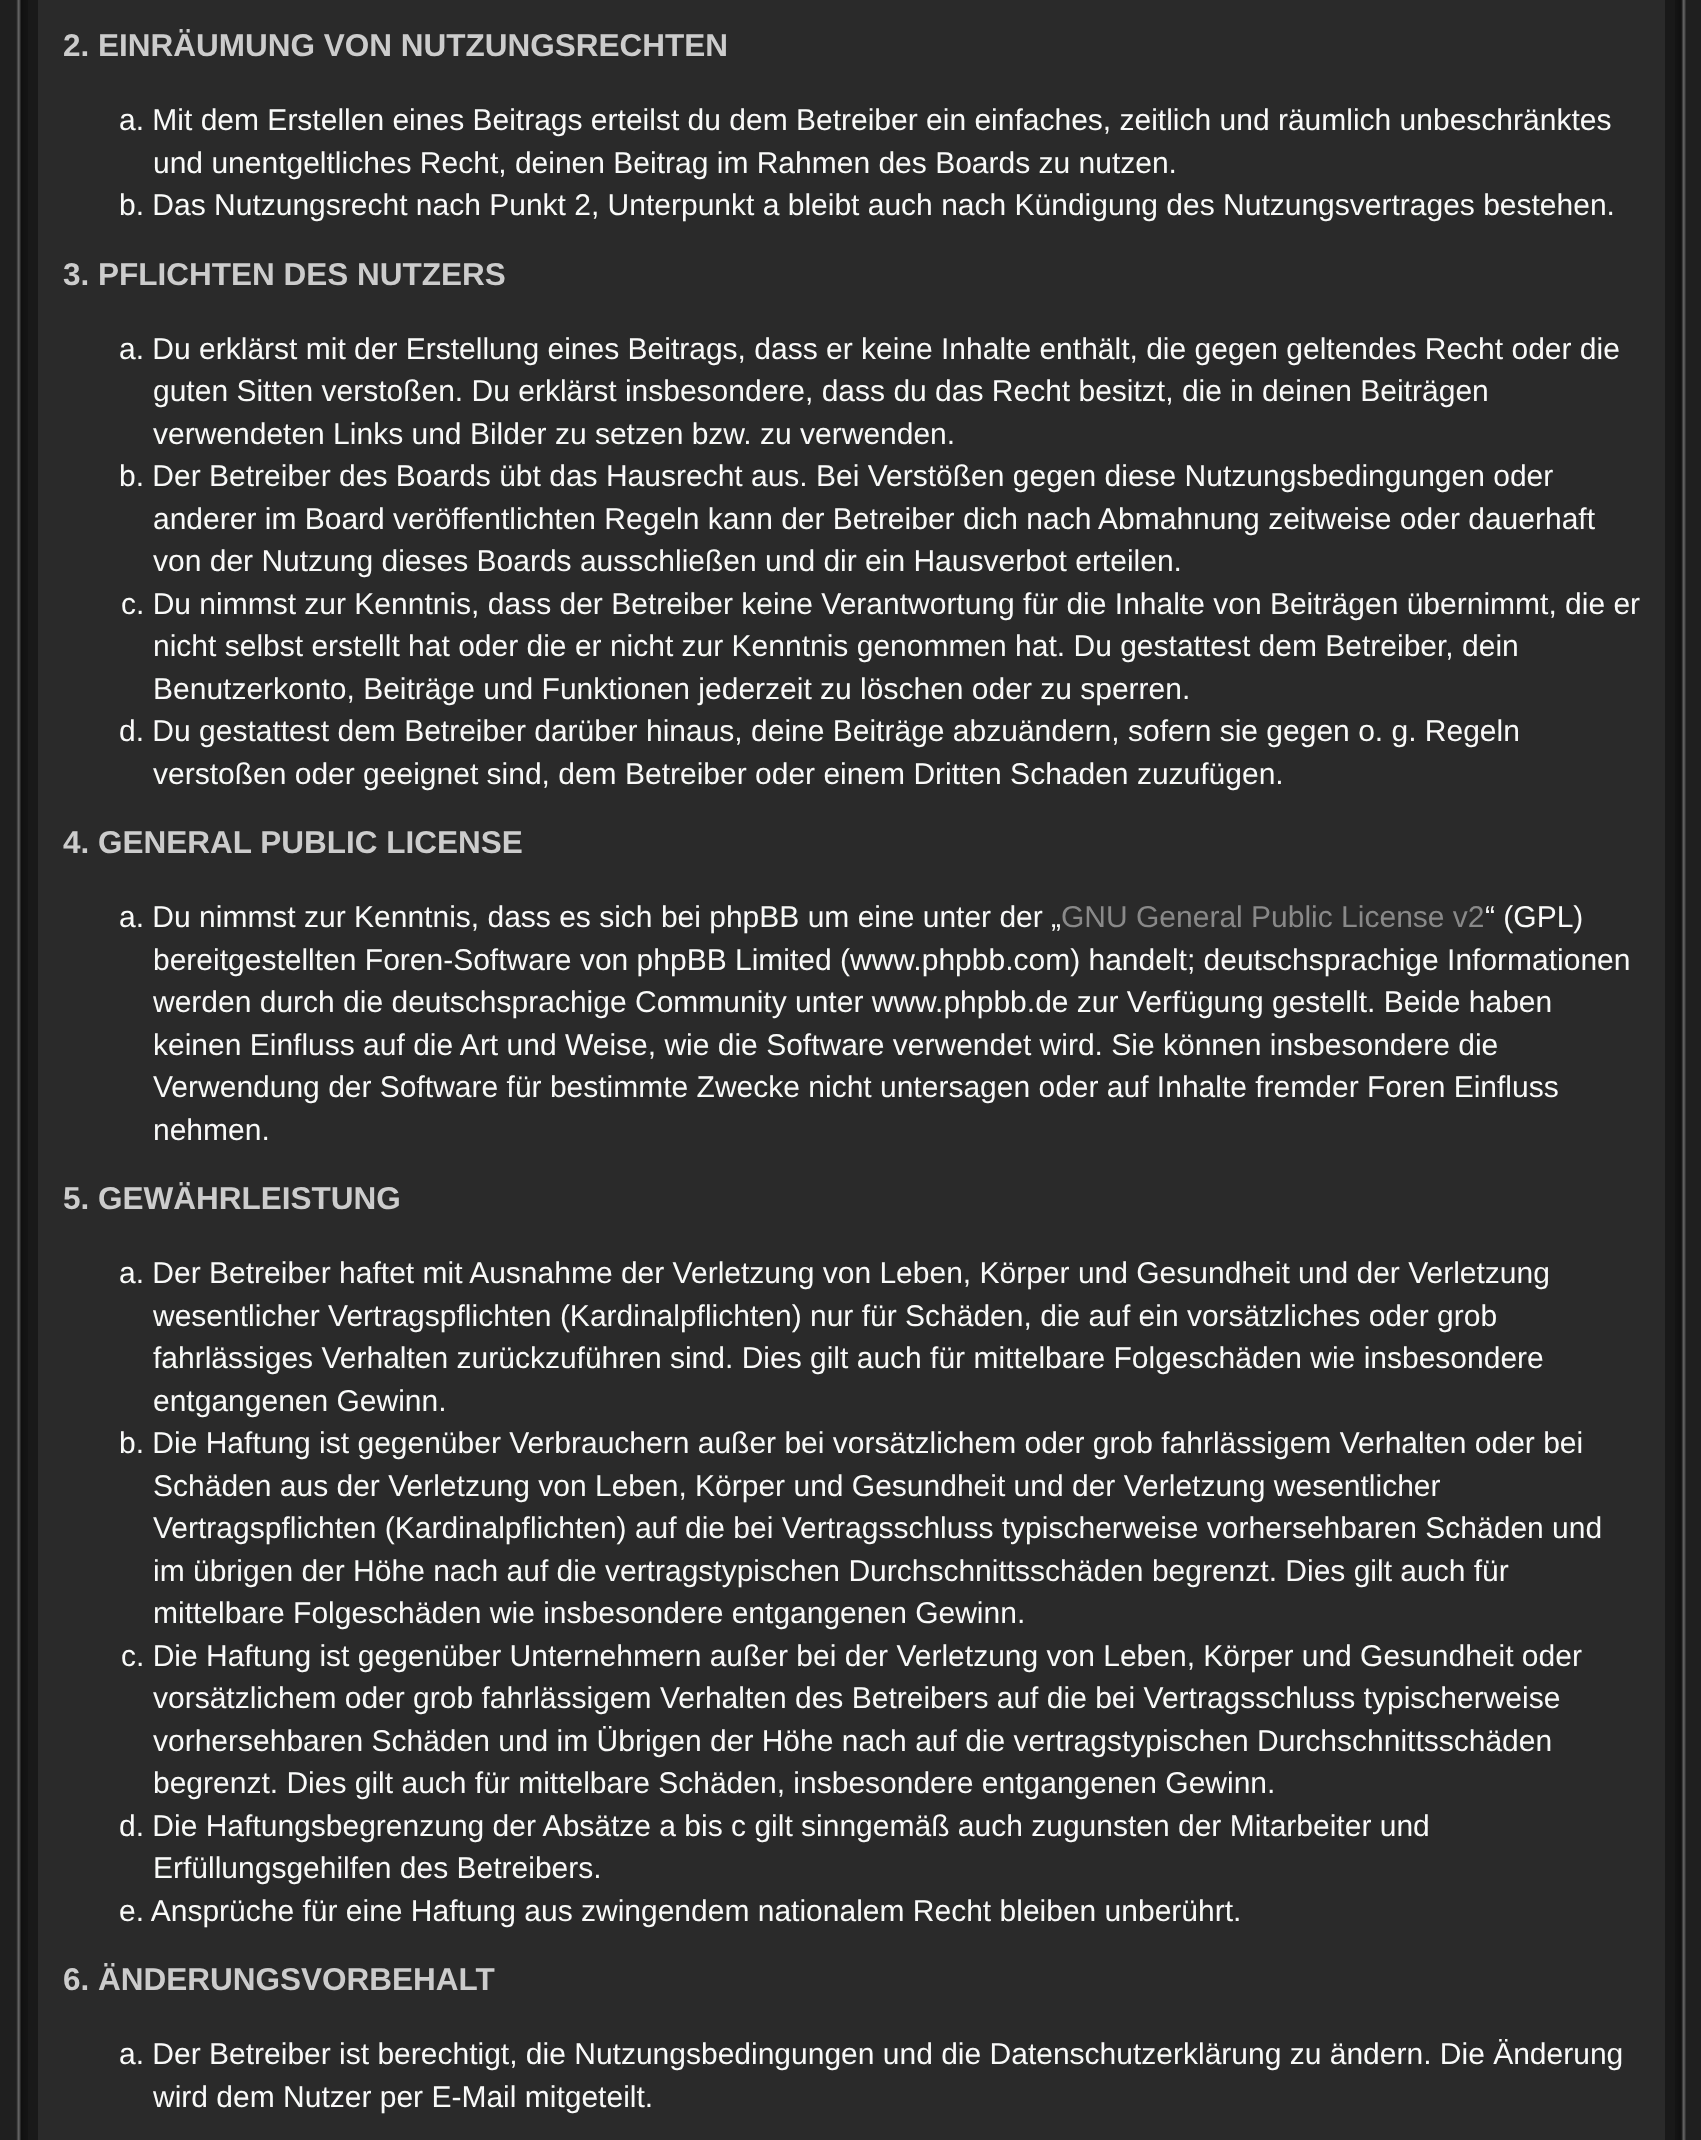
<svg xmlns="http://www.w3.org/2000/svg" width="1701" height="2140">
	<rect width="100%" height="100%" fill="#1F1F1F" />
	<rect x="28" y="0" width="1647" height="2140" fill="#191919" />
	<image x="13" y="0" width="15" height="2140" href="assets/img1.png" />
	<image x="1675" y="0" width="15" height="2140" href="assets/img2.png" />
	<rect x="38" y="0" width="1627" height="2140" fill="#2A2A2A" />
	<text x="63" y="56" font-family="Liberation Sans" font-size="31.5" font-weight="700" fill="#CCCCCC">2. EINRÄUMUNG VON NUTZUNGSRECHTEN</text>
	<g font-family="Liberation Sans" font-size="30" fill="#F9FAF9">
		<text x="119" y="130">a. Mit dem Erstellen eines Beitrags erteilst du dem Betreiber ein einfaches, zeitlich und räumlich unbeschränktes</text>
		<text x="153" y="173">und unentgeltliches Recht, deinen Beitrag im Rahmen des Boards zu nutzen.</text>
		<text x="119" y="215">b. Das Nutzungsrecht nach Punkt 2, Unterpunkt a bleibt auch nach Kündigung des Nutzungsvertrages bestehen.</text>
	</g>
	<text x="63" y="285" font-family="Liberation Sans" font-size="31.5" font-weight="700" fill="#CCCCCC">3. PFLICHTEN DES NUTZERS</text>
	<g font-family="Liberation Sans" font-size="30" fill="#F9FAF9">
		<text x="119" y="359">a. Du erklärst mit der Erstellung eines Beitrags, dass er keine Inhalte enthält, die gegen geltendes Recht oder die</text>
		<text x="153" y="401">guten Sitten verstoßen. Du erklärst insbesondere, dass du das Recht besitzt, die in deinen Beiträgen</text>
		<text x="153" y="444">verwendeten Links und Bilder zu setzen bzw. zu verwenden.</text>
		<text x="119" y="486">b. Der Betreiber des Boards übt das Hausrecht aus. Bei Verstößen gegen diese Nutzungsbedingungen oder</text>
		<text x="153" y="529">anderer im Board veröffentlichten Regeln kann der Betreiber dich nach Abmahnung zeitweise oder dauerhaft</text>
		<text x="153" y="571">von der Nutzung dieses Boards ausschließen und dir ein Hausverbot erteilen.</text>
		<text x="121" y="614">c. Du nimmst zur Kenntnis, dass der Betreiber keine Verantwortung für die Inhalte von Beiträgen übernimmt, die er</text>
		<text x="153" y="656">nicht selbst erstellt hat oder die er nicht zur Kenntnis genommen hat. Du gestattest dem Betreiber, dein</text>
		<text x="153" y="699">Benutzerkonto, Beiträge und Funktionen jederzeit zu löschen oder zu sperren.</text>
		<text x="119" y="741">d. Du gestattest dem Betreiber darüber hinaus, deine Beiträge abzuändern, sofern sie gegen o. g. Regeln</text>
		<text x="153" y="784">verstoßen oder geeignet sind, dem Betreiber oder einem Dritten Schaden zuzufügen.</text>
	</g>
	<text x="63" y="853" font-family="Liberation Sans" font-size="31.5" font-weight="700" fill="#CCCCCC">4. GENERAL PUBLIC LICENSE</text>
	<text x="119" y="927" font-family="Liberation Sans" font-size="30" fill="#F9FAF9">a. Du nimmst zur Kenntnis, dass es sich bei phpBB um eine unter der „</text>
	<text x="1061" y="927" font-family="Liberation Sans" font-size="30" fill="#898989">GNU General Public License v2</text>
	<g font-family="Liberation Sans" font-size="30" fill="#F9FAF9">
		<text x="1485" y="927">“ (GPL)</text>
		<text x="153" y="970">bereitgestellten Foren-Software von phpBB Limited (www.phpbb.com) handelt; deutschsprachige Informationen</text>
		<text x="153" y="1012">werden durch die deutschsprachige Community unter www.phpbb.de zur Verfügung gestellt. Beide haben</text>
		<text x="153" y="1055">keinen Einfluss auf die Art und Weise, wie die Software verwendet wird. Sie können insbesondere die</text>
		<text x="153" y="1097">Verwendung der Software für bestimmte Zwecke nicht untersagen oder auf Inhalte fremder Foren Einfluss</text>
		<text x="153" y="1140">nehmen.</text>
	</g>
	<text x="63" y="1209" font-family="Liberation Sans" font-size="31.5" font-weight="700" fill="#CCCCCC">5. GEWÄHRLEISTUNG</text>
	<g font-family="Liberation Sans" font-size="30" fill="#F9FAF9">
		<text x="119" y="1283">a. Der Betreiber haftet mit Ausnahme der Verletzung von Leben, Körper und Gesundheit und der Verletzung</text>
		<text x="153" y="1326">wesentlicher Vertragspflichten (Kardinalpflichten) nur für Schäden, die auf ein vorsätzliches oder grob</text>
		<text x="153" y="1368">fahrlässiges Verhalten zurückzuführen sind. Dies gilt auch für mittelbare Folgeschäden wie insbesondere</text>
		<text x="153" y="1411">entgangenen Gewinn.</text>
		<text x="119" y="1453">b. Die Haftung ist gegenüber Verbrauchern außer bei vorsätzlichem oder grob fahrlässigem Verhalten oder bei</text>
		<text x="153" y="1496">Schäden aus der Verletzung von Leben, Körper und Gesundheit und der Verletzung wesentlicher</text>
		<text x="153" y="1538">Vertragspflichten (Kardinalpflichten) auf die bei Vertragsschluss typischerweise vorhersehbaren Schäden und</text>
		<text x="153" y="1581">im übrigen der Höhe nach auf die vertragstypischen Durchschnittsschäden begrenzt. Dies gilt auch für</text>
		<text x="153" y="1623">mittelbare Folgeschäden wie insbesondere entgangenen Gewinn.</text>
		<text x="121" y="1666">c. Die Haftung ist gegenüber Unternehmern außer bei der Verletzung von Leben, Körper und Gesundheit oder</text>
		<text x="153" y="1708">vorsätzlichem oder grob fahrlässigem Verhalten des Betreibers auf die bei Vertragsschluss typischerweise</text>
		<text x="153" y="1751">vorhersehbaren Schäden und im Übrigen der Höhe nach auf die vertragstypischen Durchschnittsschäden</text>
		<text x="153" y="1793">begrenzt. Dies gilt auch für mittelbare Schäden, insbesondere entgangenen Gewinn.</text>
		<text x="119" y="1836">d. Die Haftungsbegrenzung der Absätze a bis c gilt sinngemäß auch zugunsten der Mitarbeiter und</text>
		<text x="153" y="1878">Erfüllungsgehilfen des Betreibers.</text>
		<text x="119" y="1921">e. Ansprüche für eine Haftung aus zwingendem nationalem Recht bleiben unberührt.</text>
	</g>
	<text x="63" y="1990" font-family="Liberation Sans" font-size="31.5" font-weight="700" fill="#CCCCCC">6. ÄNDERUNGSVORBEHALT</text>
	<g font-family="Liberation Sans" font-size="30" fill="#F9FAF9">
		<text x="119" y="2064">a. Der Betreiber ist berechtigt, die Nutzungsbedingungen und die Datenschutzerklärung zu ändern. Die Änderung</text>
		<text x="153" y="2107">wird dem Nutzer per E-Mail mitgeteilt.</text>
	</g>
</svg>
